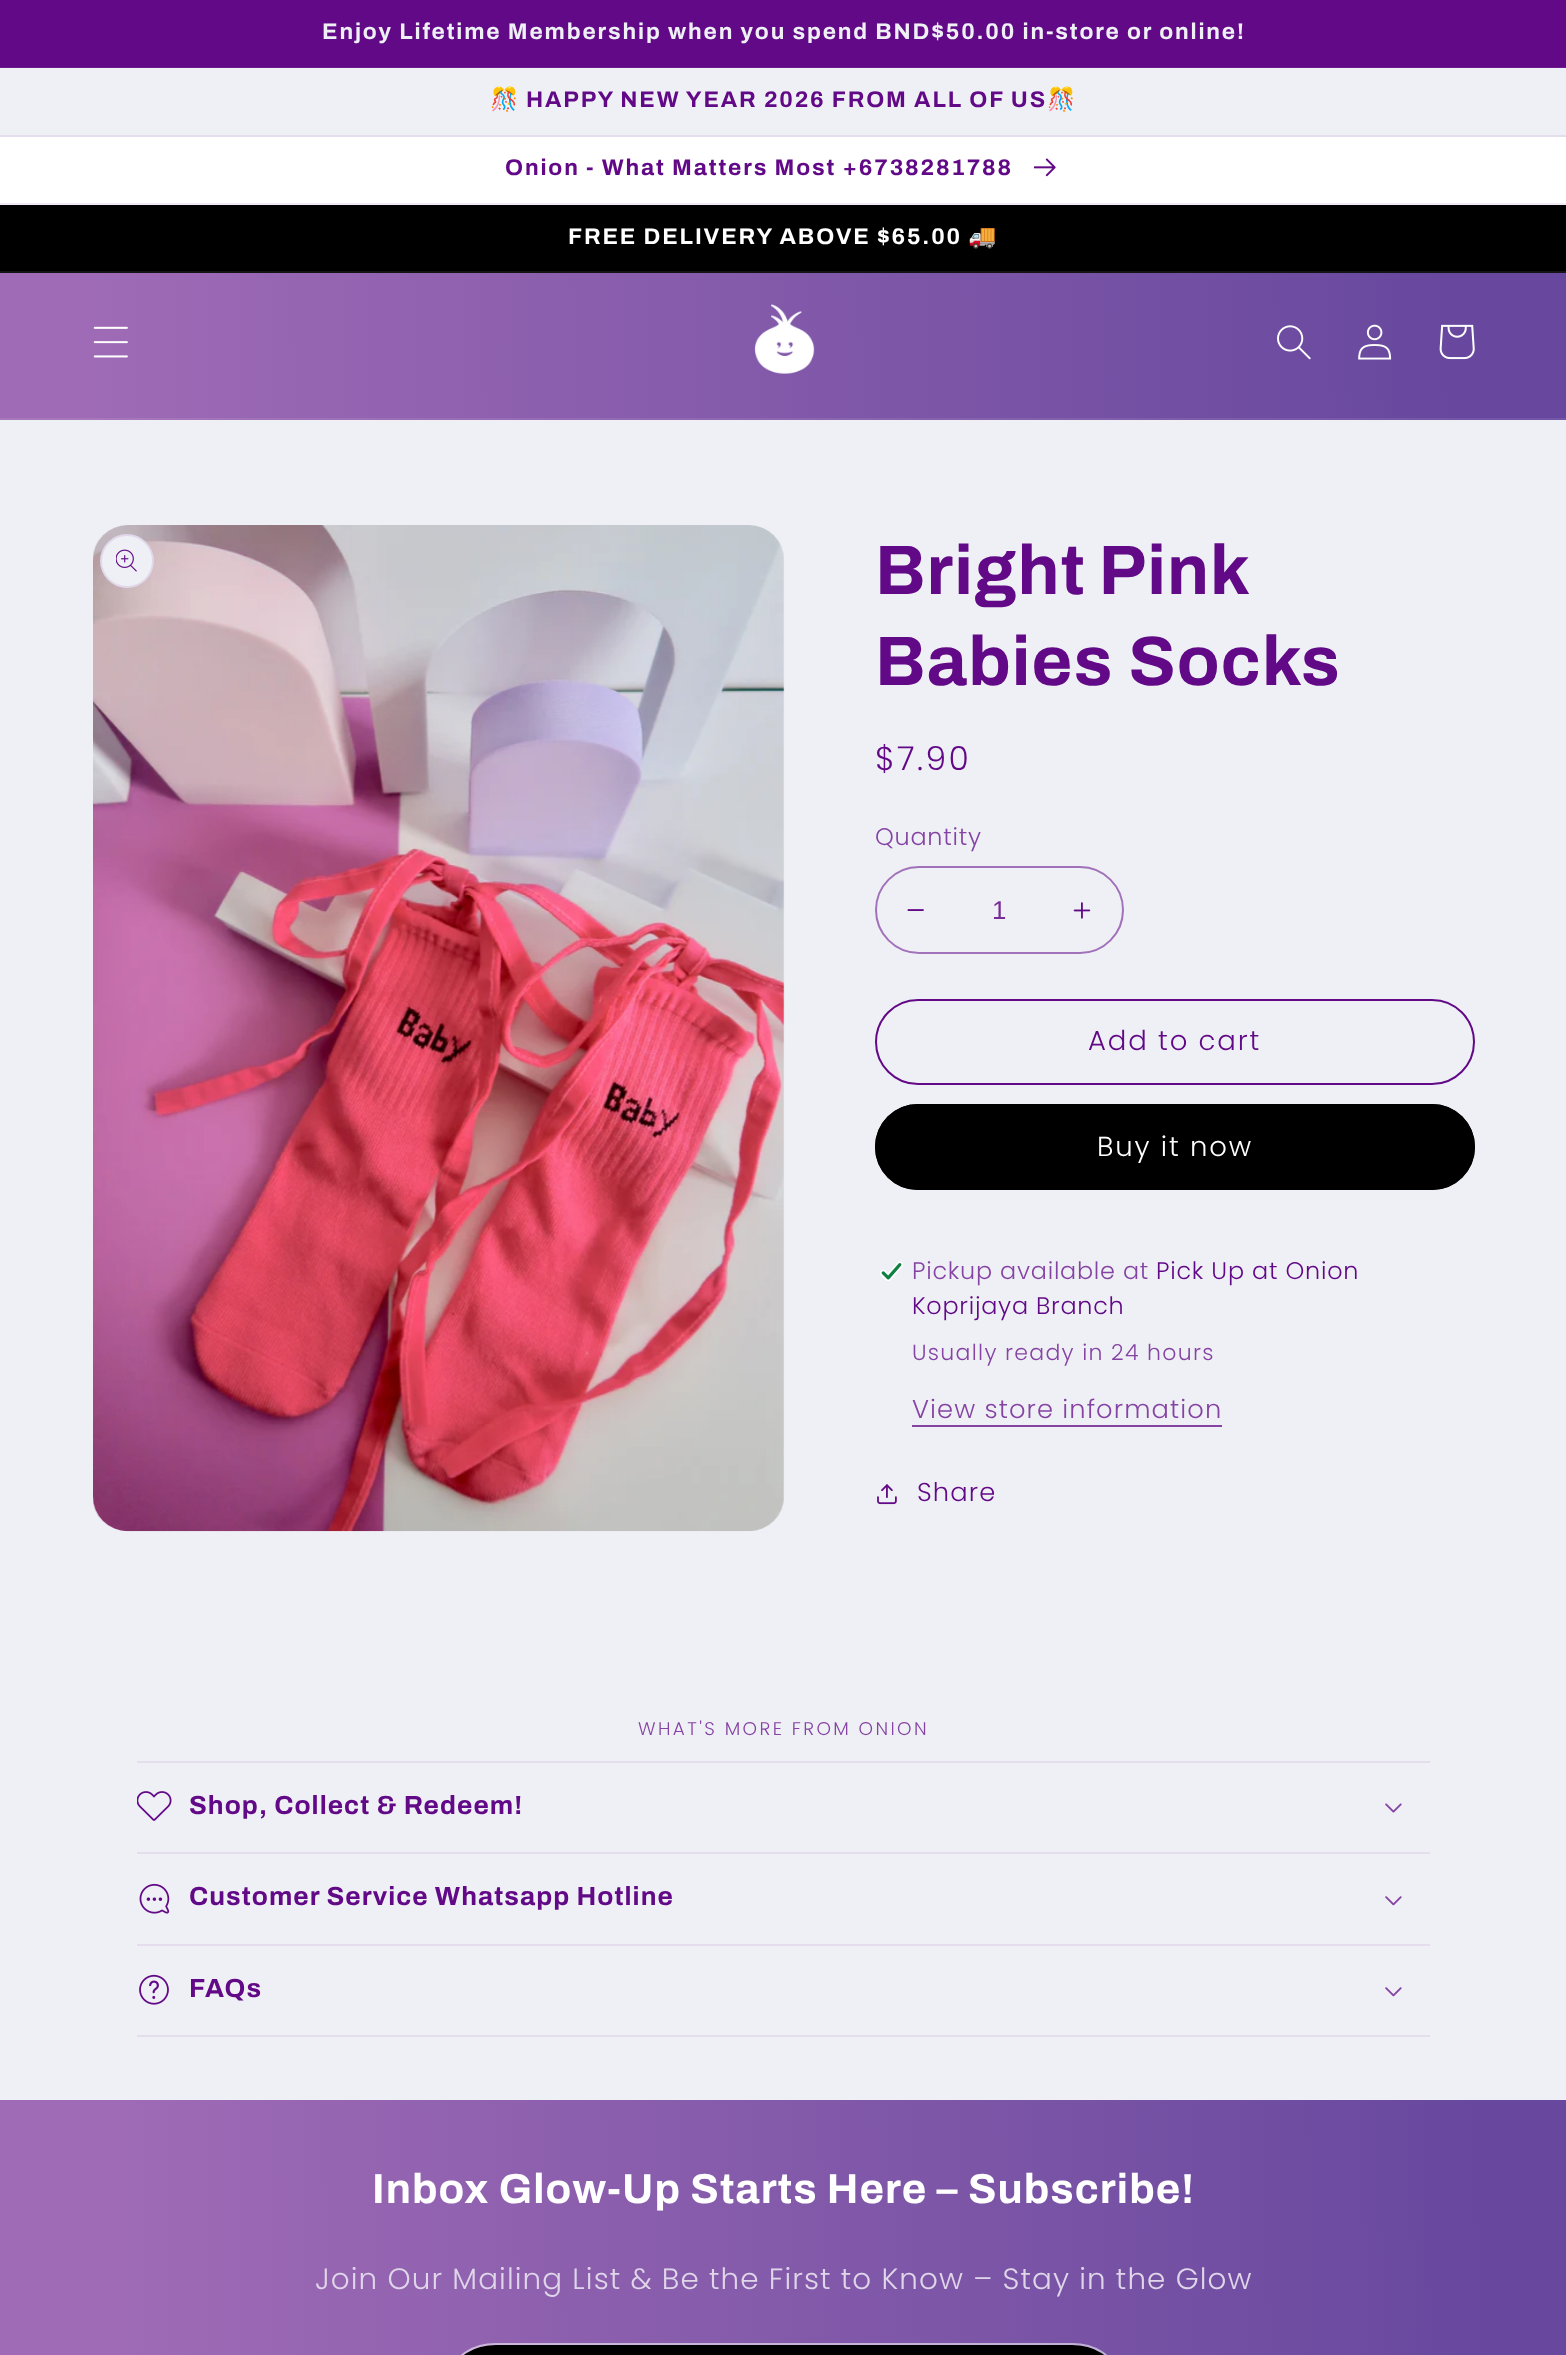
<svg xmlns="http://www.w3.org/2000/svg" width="1566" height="2355">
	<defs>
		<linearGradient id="g1" gradientUnits="userSpaceOnUse" x1="-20" y1="1192" x2="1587" y2="1164"><stop offset="0.07" stop-color="#9F6BB6" /><stop offset="0.93" stop-color="#67489E" /></linearGradient>
		<linearGradient id="g2" gradientUnits="userSpaceOnUse" x1="-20" y1="1192" x2="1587" y2="1164"><stop offset="0.07" stop-color="#A777BC" /><stop offset="0.93" stop-color="#7357A6" /></linearGradient>
	</defs>
	<rect width="100%" height="100%" fill="#EFF0F5" />
	<rect x="0" y="0" width="1566" height="67" fill="#620987" />
	<rect x="0" y="67" width="1566" height="1" fill="#6D1B90" />
	<text x="322" y="39" font-family="Archivo" font-size="22.75" font-weight="700" letter-spacing="1.85" fill="#EFF0F5">Enjoy Lifetime Membership when you spend BND$50.00 in-store or online!</text>
	<rect x="0" y="135" width="1566" height="2" fill="#E4DEEC" />
	<text x="490" y="107" font-family="Noto Color Emoji" font-size="22.75" font-weight="700" letter-spacing="1.85" fill="#620987">🎊</text>
	<text x="526" y="107" font-family="Archivo" font-size="22.75" font-weight="700" letter-spacing="1.85" fill="#620987">HAPPY NEW YEAR 2026 FROM ALL OF US</text>
	<text x="1047" y="107" font-family="Noto Color Emoji" font-size="22.75" font-weight="700" letter-spacing="1.85" fill="#620987">🎊</text>
	<rect x="0" y="137" width="1566" height="66" fill="#FFFFFF" />
	<rect x="0" y="203" width="1566" height="2" fill="#F2EBF5" />
	<text x="505" y="175" font-family="Archivo" font-size="22.75" font-weight="700" letter-spacing="1.85" fill="#620987">Onion - What Matters Most +6738281788</text>
	<image x="1034" y="158" width="22" height="19" href="assets/img1.png" />
	<rect x="0" y="205" width="1566" height="66" fill="#000000" />
	<rect x="0" y="271" width="1566" height="2" fill="#141414" />
	<text x="568" y="244" font-family="Archivo" font-size="22.75" font-weight="700" letter-spacing="1.85" fill="#FFFFFF">FREE DELIVERY ABOVE $65.00</text>
	<text x="968" y="244" font-family="Noto Color Emoji" font-size="22.75" font-weight="700" letter-spacing="1.85" fill="#FFFFFF">🚚</text>
	<rect x="0" y="273" width="1566" height="145" fill="url(#g1)" />
	<rect x="0" y="418" width="1566" height="2" fill="url(#g2)" />
	<image x="93" y="326" width="35" height="32" href="assets/img2.png" />
	<image x="754" y="304" width="61" height="70" href="assets/img3.png" />
	<image x="1277" y="325" width="34" height="35" href="assets/img4.png" />
	<image x="1358" y="324" width="34" height="36" href="assets/img5.png" />
	<image x="1439" y="324" width="36" height="36" href="assets/img6.png" />
	<image x="93" y="525" width="692" height="1007" href="assets/img7.png" />
	<circle cx="127" cy="561" r="27" fill="#EFF0F5" />
	<circle cx="127" cy="561" r="26" fill="none" stroke="#620987" stroke-opacity="0.1" stroke-width="2" />
	<image x="116" y="549" width="21" height="23" href="assets/img8.png" />
	<g font-family="Archivo" font-size="70" font-weight="700" letter-spacing="1.05" fill="#620987">
		<text x="875" y="594" word-spacing="-2">Bright Pink</text>
		<text x="875" y="685">Babies Socks</text>
	</g>
	<text x="875" y="770" font-family="Poppins" font-size="33" font-weight="300" letter-spacing="2.4" fill="#620987">$7.90</text>
	<text x="875" y="845" font-family="Poppins" font-size="23.9" font-weight="300" letter-spacing="0.75" fill="#8543A3">Quantity</text>
	<image x="907" y="909" width="17" height="2" href="assets/img9.png" />
	<image x="1073" y="902" width="18" height="17" href="assets/img10.png" />
	<rect x="876" y="867" width="247" height="86" rx="43" fill="none" stroke="#A171B9" stroke-width="2" />
	<text x="992" y="919" font-family="Liberation Sans" font-size="25.75" fill="#772C98">1</text>
	<rect x="876" y="1000" width="598" height="84" rx="42" fill="none" stroke="#620987" stroke-width="2" />
	<text x="1088" y="1050" font-family="Poppins" font-size="27.5" font-weight="300" letter-spacing="1.85" fill="#620987">Add to cart</text>
	<rect x="875" y="1104" width="600" height="86" rx="43" fill="#000000" />
	<rect x="876" y="1105" width="598" height="84" rx="42" fill="none" stroke="#000000" stroke-width="2" />
	<text x="1097" y="1156" font-family="Poppins" font-size="27.5" font-weight="300" letter-spacing="1.85" fill="#FFFFFF">Buy it now</text>
	<image x="880" y="1261" width="23" height="20" href="assets/img11.png" />
	<text x="912" y="1279" font-family="Poppins" font-size="23.9" font-weight="300" letter-spacing="0.75" fill="#8543A3">Pickup available at</text>
	<g font-family="Poppins" font-size="23.9" font-weight="300" letter-spacing="0.75" fill="#620987">
		<text x="1156" y="1279">Pick Up at Onion</text>
		<text x="912" y="1314">Koprijaya Branch</text>
	</g>
	<text x="912" y="1360" font-family="Poppins" font-size="22" font-weight="300" letter-spacing="1.3" fill="#8543A3">Usually ready in 24 hours</text>
	<text x="912" y="1418" font-family="Poppins" font-size="25.75" font-weight="300" letter-spacing="1.1" fill="#8543A3">View store information</text>
	<rect x="912" y="1425" width="310" height="2" fill="#8543A3" />
	<image x="877" y="1484" width="20" height="21" href="assets/img12.png" />
	<text x="917" y="1501" font-family="Poppins" font-size="25.75" font-weight="300" letter-spacing="1.1" fill="#620987">Share</text>
	<text x="638" y="1735" font-family="Poppins" font-size="18.4" font-weight="300" letter-spacing="2.4" fill="#8543A3">WHAT'S MORE FROM ONION</text>
	<rect x="137" y="1761" width="1293" height="2" fill="#E4DEEC" />
	<rect x="137" y="1852" width="1293" height="2" fill="#E4DEEC" />
	<image x="137" y="1791" width="35" height="30" href="assets/img13.png" />
	<text x="189" y="1814" font-family="Archivo" font-size="26.25" font-weight="700" letter-spacing="1.05" fill="#620987">Shop, Collect &amp; Redeem!</text>
	<image x="1385" y="1803" width="17" height="10" href="assets/img14.png" />
	<rect x="137" y="1944" width="1293" height="2" fill="#E4DEEC" />
	<image x="139" y="1883" width="31" height="31" href="assets/img15.png" />
	<text x="189" y="1905" font-family="Archivo" font-size="26.25" font-weight="700" letter-spacing="1.05" fill="#620987">Customer Service Whatsapp Hotline</text>
	<image x="1385" y="1896" width="17" height="10" href="assets/img16.png" />
	<rect x="137" y="2035" width="1293" height="2" fill="#E4DEEC" />
	<image x="139" y="1974" width="30" height="31" href="assets/img17.png" />
	<text x="189" y="1997" font-family="Archivo" font-size="26.25" font-weight="700" letter-spacing="1.05" fill="#620987">FAQs</text>
	<image x="1385" y="1987" width="17" height="10" href="assets/img16.png" />
	<rect x="0" y="2100" width="1566" height="255" fill="url(#g1)" />
	<text x="372" y="2203" font-family="Archivo" font-size="42" font-weight="700" letter-spacing="1.05" fill="#FFFFFF">Inbox Glow-Up Starts Here – Subscribe!</text>
	<text x="315" y="2289" font-family="Poppins" font-size="29.4" font-weight="300" letter-spacing="1.1" fill="#E0D6EA">Join Our Mailing List &amp; Be the First to Know – Stay in the Glow</text>
	<rect x="455" y="2345" width="658" height="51" rx="41" fill="#000000" />
	<rect x="454" y="2344" width="660" height="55" rx="42" fill="none" stroke="#FFFFFF" stroke-opacity="0.55" stroke-width="2" />
</svg>
